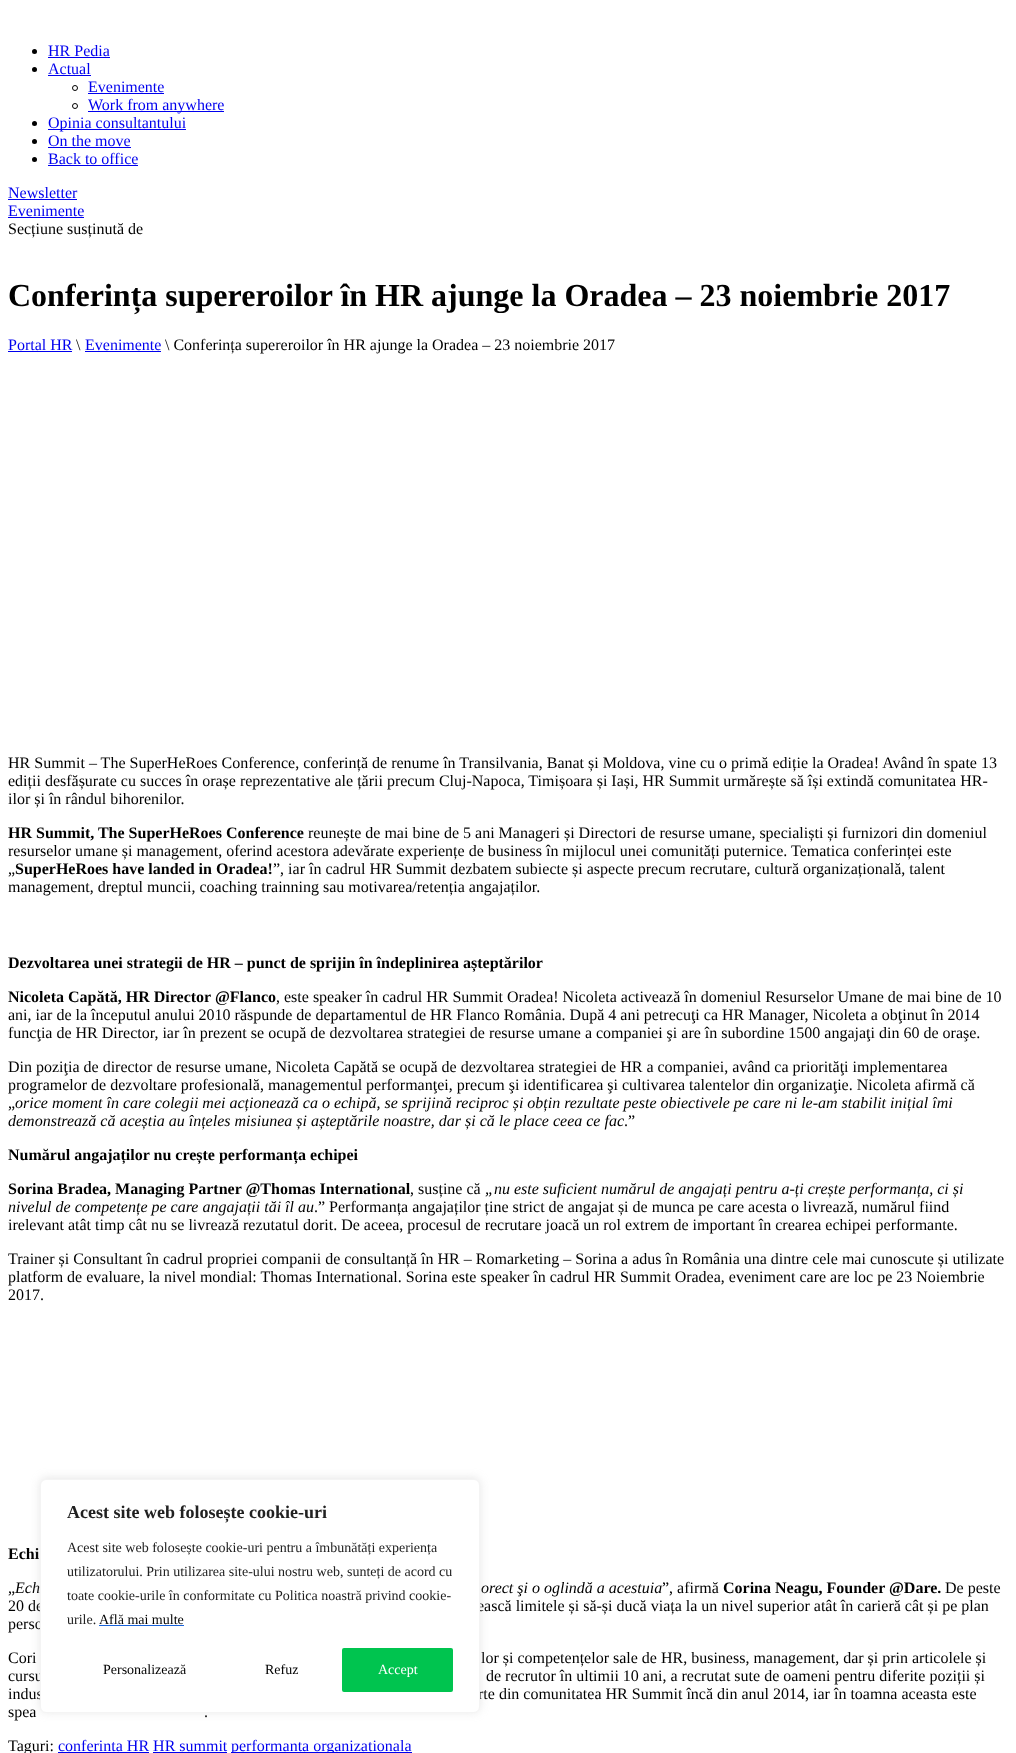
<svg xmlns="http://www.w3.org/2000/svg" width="1016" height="1753">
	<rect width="100%" height="100%" fill="#FFFFFF" />
	<circle cx="34.5" cy="51.5" r="2.5" fill="#000000" />
	<text x="48" y="56" font-family="Liberation Serif" font-size="16" fill="#0000EE">HR Pedia</text>
	<rect x="48" y="57" width="62" height="1" fill="#0000EE" />
	<circle cx="34.5" cy="69.5" r="2.5" fill="#000000" />
	<text x="48" y="74" font-family="Liberation Serif" font-size="16" fill="#0000EE">Actual</text>
	<rect x="48" y="75" width="43" height="1" fill="#0000EE" />
	<circle cx="75" cy="88" r="2.5" fill="none" stroke="#000000" />
	<text x="88" y="92" font-family="Liberation Serif" font-size="16" fill="#0000EE">Evenimente</text>
	<rect x="88" y="93" width="76" height="1" fill="#0000EE" />
	<circle cx="75" cy="106" r="2.5" fill="none" stroke="#000000" />
	<rect x="88" y="111" width="136" height="1" fill="#0000EE" />
	<text x="88" y="110" font-family="Liberation Serif" font-size="16" fill="#0000EE">Work from anywhere</text>
	<circle cx="34.5" cy="123.5" r="2.5" fill="#000000" />
	<rect x="48" y="129" width="138" height="1" fill="#0000EE" />
	<text x="48" y="128" font-family="Liberation Serif" font-size="16" fill="#0000EE">Opinia consultantului</text>
	<circle cx="34.5" cy="141.5" r="2.5" fill="#000000" />
	<text x="48" y="146" font-family="Liberation Serif" font-size="16" fill="#0000EE">On the move</text>
	<rect x="48" y="147" width="83" height="1" fill="#0000EE" />
	<circle cx="34.5" cy="159.5" r="2.5" fill="#000000" />
	<text x="48" y="164" font-family="Liberation Serif" font-size="16" fill="#0000EE">Back to office</text>
	<rect x="48" y="165" width="90" height="1" fill="#0000EE" />
	<text x="8" y="198" font-family="Liberation Serif" font-size="16" fill="#0000EE">Newsletter</text>
	<rect x="8" y="199" width="69" height="1" fill="#0000EE" />
	<text x="8" y="216" font-family="Liberation Serif" font-size="16" fill="#0000EE">Evenimente</text>
	<rect x="8" y="217" width="76" height="1" fill="#0000EE" />
	<text x="8" y="234" font-family="Liberation Serif" font-size="16" fill="#000000">Secțiune susținută de</text>
	<text x="8" y="306" font-family="Liberation Serif" font-size="32" font-weight="700" fill="#000000">Conferința supereroilor în HR ajunge la Oradea – 23 noiembrie 2017</text>
	<text x="8" y="350" font-family="Liberation Serif" font-size="16" fill="#0000EE">Portal HR</text>
	<rect x="8" y="351" width="64" height="1" fill="#0000EE" />
	<text x="76" y="350" font-family="Liberation Serif" font-size="16" fill="#000000">\</text>
	<text x="85" y="350" font-family="Liberation Serif" font-size="16" fill="#0000EE">Evenimente</text>
	<rect x="85" y="351" width="76" height="1" fill="#0000EE" />
	<g font-family="Liberation Serif" font-size="16" fill="#000000">
		<text x="165" y="350">\ Conferința supereroilor în HR ajunge la Oradea – 23 noiembrie 2017</text>
		<text x="8" y="768">HR Summit – The SuperHeRoes Conference, conferință de renume în Transilvania, Banat și Moldova, vine cu o primă ediție la Oradea! Având în spate 13</text>
		<text x="8" y="786">ediții desfășurate cu succes în orașe reprezentative ale țării precum Cluj-Napoca, Timișoara și Iași, HR Summit urmărește să își extindă comunitatea HR-</text>
		<text x="8" y="804">ilor și în rândul bihorenilor.</text>
	</g>
	<text x="8" y="838" font-family="Liberation Serif" font-size="16" font-weight="700" fill="#000000">HR Summit, The SuperHeRoes Conference</text>
	<g font-family="Liberation Serif" font-size="16" fill="#000000">
		<text x="308" y="838">reunește de mai bine de 5 ani Manageri și Directori de resurse umane, specialiști și furnizori din domeniul</text>
		<text x="8" y="856">resurselor umane și management, oferind acestora adevărate experiențe de business în mijlocul unei comunități puternice. Tematica conferinței este</text>
		<text x="8" y="874">„</text>
	</g>
	<text x="15" y="874" font-family="Liberation Serif" font-size="16" font-weight="700" fill="#000000">SuperHeRoes have landed in Oradea!</text>
	<g font-family="Liberation Serif" font-size="16" fill="#000000">
		<text x="273" y="874">”, iar în cadrul HR Summit dezbatem subiecte și aspecte precum recrutare, cultură organizațională, talent</text>
		<text x="8" y="892">management, dreptul muncii, coaching trainning sau motivarea/retenția angajaților.</text>
	</g>
	<g font-family="Liberation Serif" font-size="16" font-weight="700" fill="#000000">
		<text x="8" y="968">Dezvoltarea unei strategii de HR – punct de sprijin în îndeplinirea așteptărilor</text>
		<text x="8" y="1002">Nicoleta Capătă, HR Director @Flanco</text>
	</g>
	<g font-family="Liberation Serif" font-size="16" fill="#000000">
		<text x="276" y="1002">, este speaker în cadrul HR Summit Oradea! Nicoleta activează în domeniul Resurselor Umane de mai bine de 10</text>
		<text x="8" y="1020">ani, iar de la începutul anului 2010 răspunde de departamentul de HR Flanco România. După 4 ani petrecuţi ca HR Manager, Nicoleta a obţinut în 2014</text>
		<text x="8" y="1038">funcţia de HR Director, iar în prezent se ocupă de dezvoltarea strategiei de resurse umane a companiei şi are în subordine 1500 angajaţi din 60 de oraşe.</text>
		<text x="8" y="1072">Din poziţia de director de resurse umane, Nicoleta Capătă se ocupă de dezvoltarea strategiei de HR a companiei, având ca priorităţi implementarea</text>
		<text x="8" y="1090">programelor de dezvoltare profesională, managementul performanţei, precum şi identificarea şi cultivarea talentelor din organizaţie. Nicoleta afirmă că</text>
		<text x="8" y="1108">„</text>
	</g>
	<g font-family="Liberation Serif" font-size="16" font-style="italic" fill="#000000">
		<text x="15" y="1108">orice moment în care colegii mei acționează ca o echipă, se sprijină reciproc și obțin rezultate peste obiectivele pe care ni le-am stabilit inițial îmi</text>
		<text x="8" y="1126">demonstrează că aceștia au înțeles misiunea și așteptările noastre, dar și că le place ceea ce fac</text>
	</g>
	<text x="624" y="1126" font-family="Liberation Serif" font-size="16" fill="#000000">.”</text>
	<g font-family="Liberation Serif" font-size="16" font-weight="700" fill="#000000">
		<text x="8" y="1160">Numărul angajaților nu crește performanța echipei</text>
		<text x="8" y="1194">Sorina Bradea, Managing Partner @Thomas International</text>
	</g>
	<text x="410" y="1194" font-family="Liberation Serif" font-size="16" fill="#000000">, susține că</text>
	<g font-family="Liberation Serif" font-size="16" font-style="italic" fill="#000000">
		<text x="485" y="1194">„nu este suficient numărul de angajați pentru a-ți crește performanța, ci și</text>
		<text x="8" y="1212">nivelul de competențe pe care angajații tăi îl au</text>
	</g>
	<g font-family="Liberation Serif" font-size="16" fill="#000000">
		<text x="314" y="1212">.” Performanța angajaților ține strict de angajat și de munca pe care acesta o livrează, numărul fiind</text>
		<text x="8" y="1230">irelevant atât timp cât nu se livrează rezutatul dorit. De aceea, procesul de recrutare joacă un rol extrem de important în crearea echipei performante.</text>
		<text x="8" y="1264">Trainer și Consultant în cadrul propriei companii de consultanță în HR – Romarketing – Sorina a adus în România una dintre cele mai cunoscute și utilizate</text>
		<text x="8" y="1282">platform de evaluare, la nivel mondial: Thomas International. Sorina este speaker în cadrul HR Summit Oradea, eveniment care are loc pe 23 Noiembrie</text>
		<text x="8" y="1300">2017.</text>
	</g>
	<text x="8" y="1559" font-family="Liberation Serif" font-size="16" font-weight="700" fill="#000000">Echi</text>
	<text x="8" y="1593" font-family="Liberation Serif" font-size="16" fill="#000000">„</text>
	<g font-family="Liberation Serif" font-size="16" font-style="italic" fill="#000000">
		<text x="15" y="1593">Ech</text>
		<text x="481" y="1593">orect şi o oglindă a acestuia</text>
	</g>
	<text x="662" y="1593" font-family="Liberation Serif" font-size="16" fill="#000000">”, afirmă</text>
	<text x="723" y="1593" font-family="Liberation Serif" font-size="16" font-weight="700" fill="#000000">Corina Neagu, Founder @Dare.</text>
	<g font-family="Liberation Serif" font-size="16" fill="#000000">
		<text x="945" y="1593">De peste</text>
		<text x="8" y="1611">20 de</text>
		<text x="477" y="1611">ească limitele și să-și ducă viața la un nivel superior atât în carieră cât și pe plan</text>
		<text x="8" y="1629">perso</text>
		<text x="8" y="1663">Cori</text>
		<text x="481" y="1663">lor și competențelor sale de HR, business, management, dar și prin articolele și</text>
		<text x="8" y="1681">cursu</text>
		<text x="486" y="1681">de recrutor în ultimii 10 ani, a recrutat sute de oameni pentru diferite poziții și</text>
		<text x="8" y="1699">indus</text>
		<text x="478" y="1699">rte din comunitatea HR Summit încă din anul 2014, iar în toamna aceasta este</text>
		<text x="8" y="1717">spea</text>
		<text x="204" y="1717">.</text>
		<text x="8" y="1751">Taguri:</text>
	</g>
	<text x="58" y="1751" font-family="Liberation Serif" font-size="16" fill="#0000EE">conferinta HR HR summit</text>
	<rect x="58" y="1752" width="91" height="1" fill="#0000EE" />
	<rect x="231" y="1752" width="181" height="1" fill="#0000EE" />
	<text x="231" y="1751" font-family="Liberation Serif" font-size="16" fill="#0000EE">performanta organizationala</text>
	<rect x="153" y="1752" width="74" height="1" fill="#0000EE" />
	<rect x="40" y="1478" width="440" height="234" rx="6" fill="#ACABAB" fill-opacity="0.3" filter="blur(5px)" />
	<rect x="40.5" y="1479.5" width="439" height="233" rx="5.5" fill="#FFFFFF" stroke="#F4F4F4" />
	<text x="67" y="1518" font-family="Liberation Serif" font-size="18" font-weight="700" fill="#212121">Acest site web folosește cookie-uri</text>
	<g font-family="Liberation Serif" font-size="14" fill="#212121">
		<text x="67" y="1552">Acest site web folosește cookie-uri pentru a îmbunătăți experiența</text>
		<text x="67" y="1576">utilizatorului. Prin utilizarea site-ului nostru web, sunteți de acord cu</text>
		<text x="67" y="1600">toate cookie-urile în conformitate cu Politica noastră privind cookie-</text>
		<text x="67" y="1624">urile.</text>
	</g>
	<text x="99" y="1624" font-family="Liberation Serif" font-size="14" fill="#000000">Află mai multe</text>
	<rect x="99" y="1625" width="85" height="1" fill="#1863DC" />
	<g font-family="Liberation Serif" font-size="14" fill="#000000">
		<text x="103" y="1674">Personalizează</text>
		<text x="265" y="1674">Refuz</text>
	</g>
	<rect x="343" y="1649" width="109" height="42" rx="1" fill="#00C44F" stroke="#00C44F" stroke-width="2" />
	<text x="378" y="1674" font-family="Liberation Serif" font-size="14" fill="#FFFFFF">Accept</text>
</svg>
